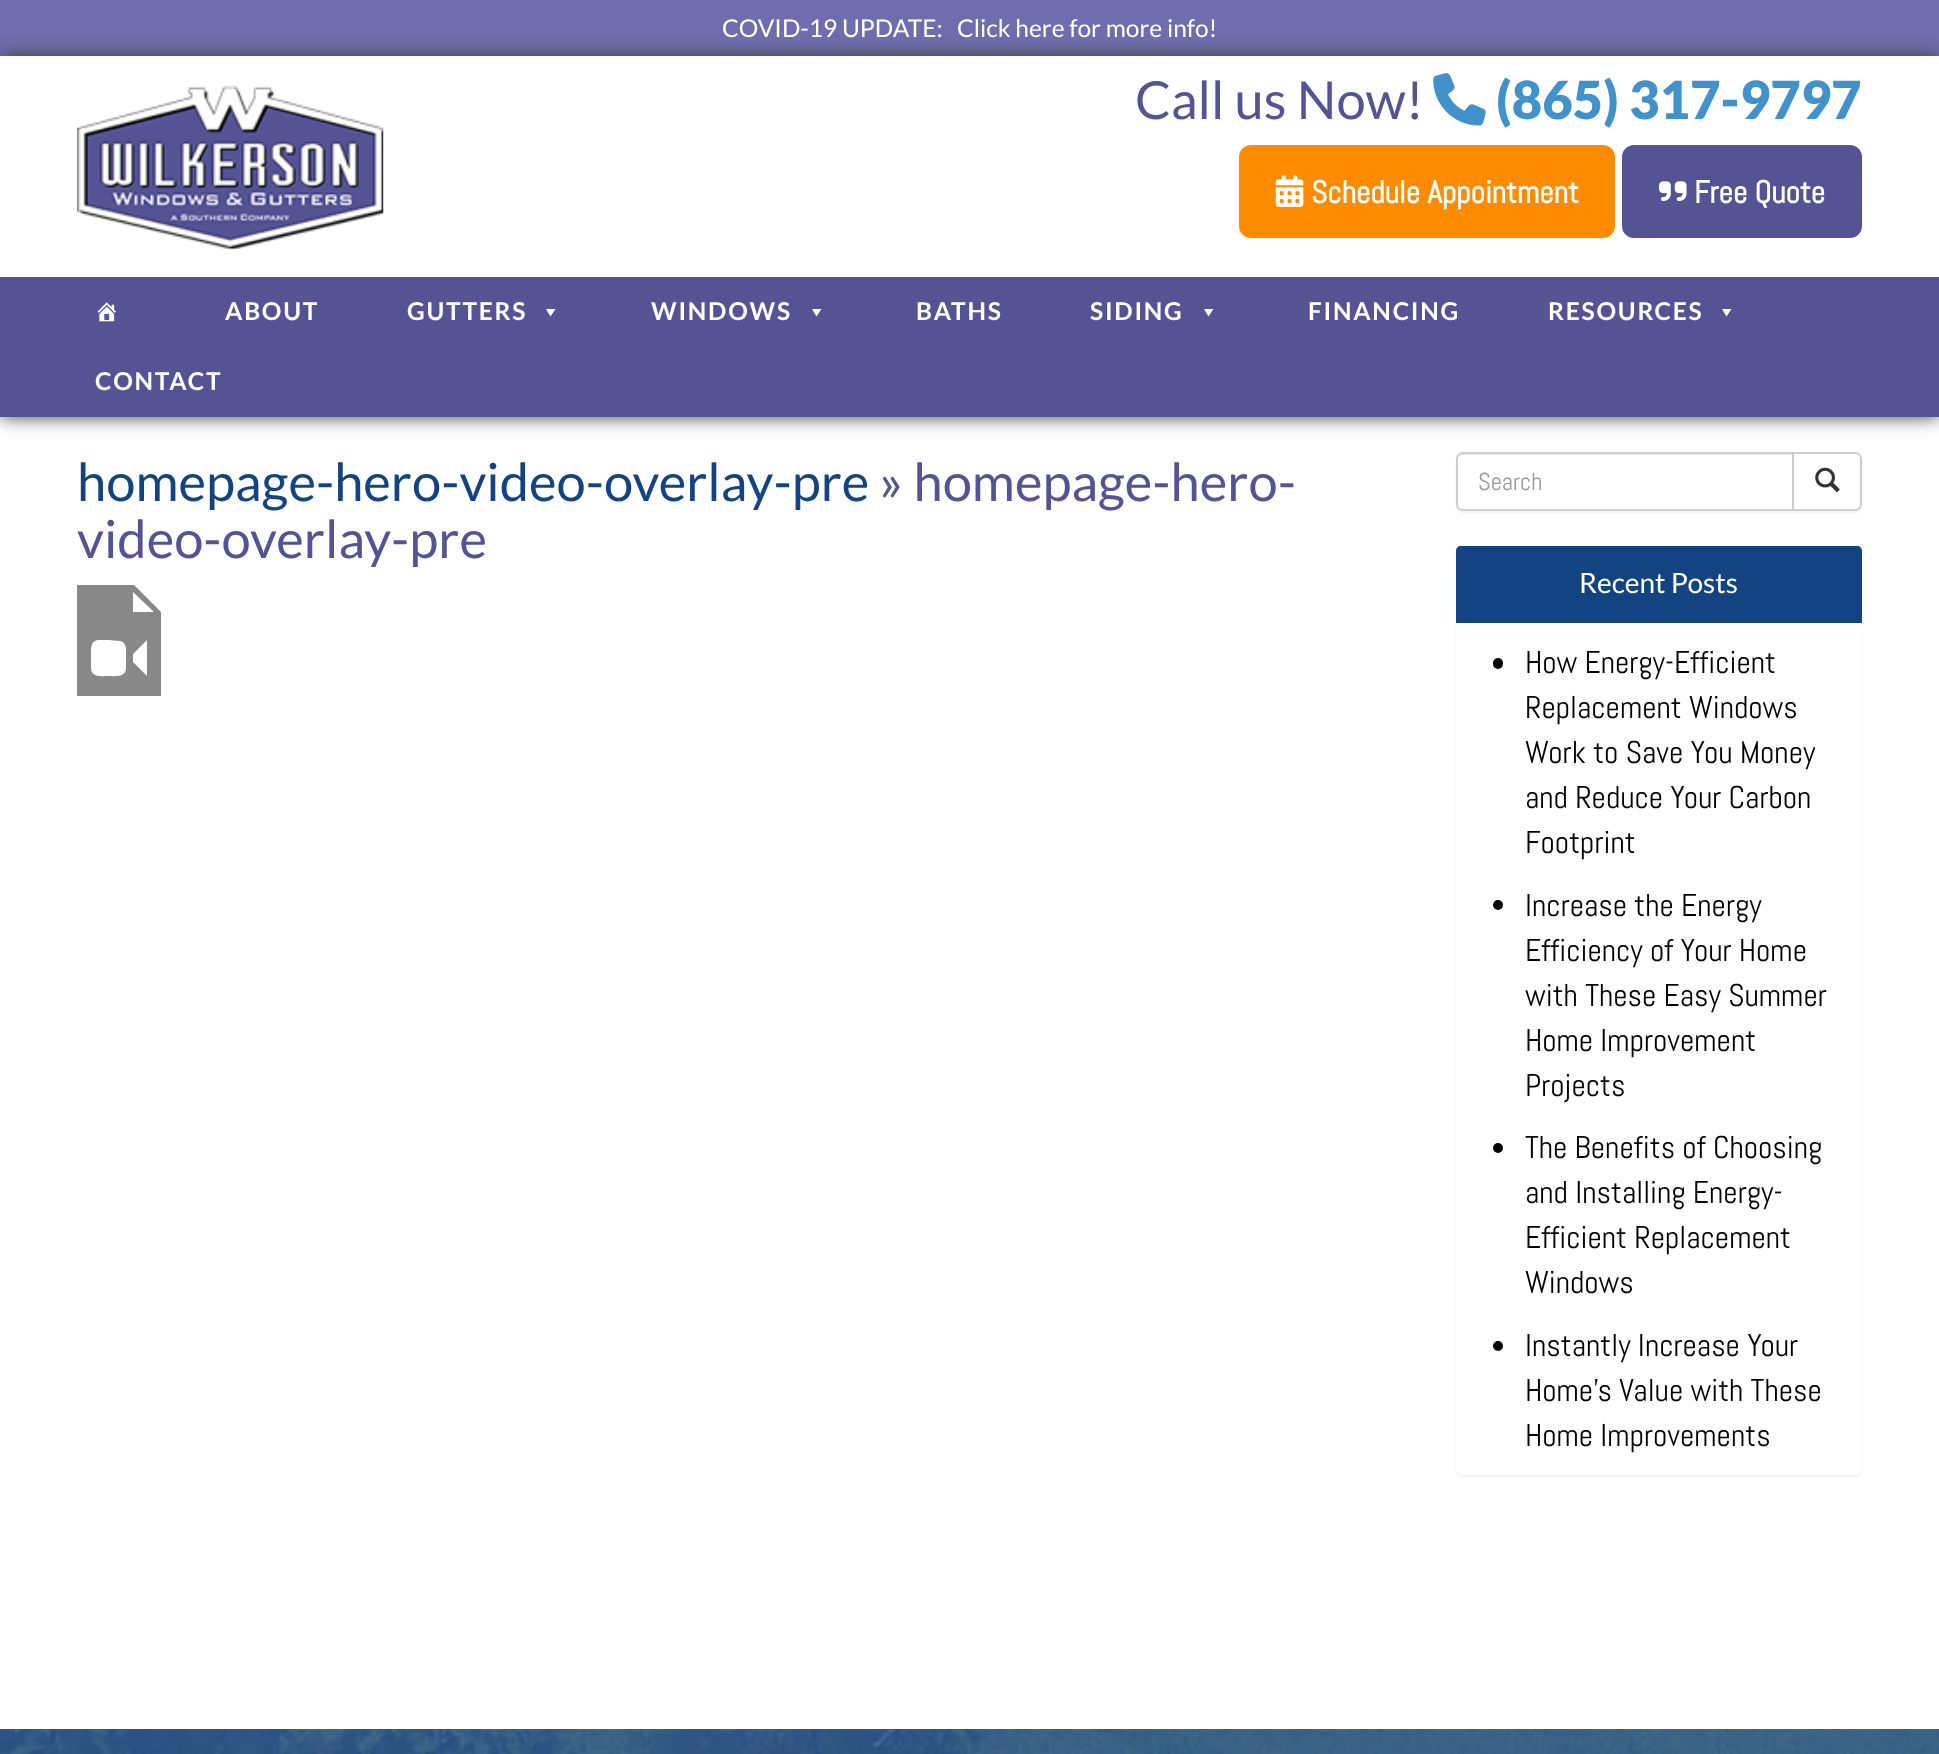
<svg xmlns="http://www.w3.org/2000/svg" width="1939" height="1754">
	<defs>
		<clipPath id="clip1"><rect x="77" y="585" width="84" height="112" /></clipPath>
	</defs>
	<rect width="100%" height="100%" fill="#FFFFFF" />
	<rect x="0" y="0" width="1939" height="56" fill="#6F6DAD" />
	<g font-family="Lato" font-size="24.5" fill="#FFFFFF">
		<text x="722" y="37">COVID-19 UPDATE:</text>
		<text x="957" y="37">Click here for more info!</text>
	</g>
	<rect x="0" y="56" width="1939" height="361" fill="#3F3F3F" filter="blur(9px)" />
	<rect x="0" y="58" width="1939" height="219" fill="#FFFFFF" />
	<rect x="0" y="56" width="1939" height="2" fill="#FEFAF7" />
	<image x="77" y="85" width="307" height="166" href="assets/img1.png" />
	<text x="1135" y="119" font-family="Lato" font-size="52.5" fill="#555394">Call us Now!</text>
	<image x="1433" y="73" width="53" height="53" href="assets/img2.png" />
	<text x="1496" y="119" font-family="Lato" font-size="52.5" font-weight="900" fill="#4191CB">(865) 317-9797</text>
	<rect x="1240" y="146" width="374" height="91" rx="11" fill="#FF8C00" stroke="#FF8C00" stroke-width="2" />
	<image x="1275" y="175" width="29" height="32" href="assets/img3.png" />
	<text x="1311" y="203" font-family="Abel" font-size="31.5" font-weight="700" fill="#FFFFFF">Schedule Appointment</text>
	<rect x="1623" y="146" width="238" height="91" rx="11" fill="#555394" stroke="#555394" stroke-width="2" />
	<image x="1659" y="181" width="28" height="20" href="assets/img4.png" />
	<text x="1694" y="203" font-family="Abel" font-size="31.5" font-weight="700" fill="#FFFFFF">Free Quote</text>
	<rect x="0" y="277" width="1939" height="140" fill="#555394" />
	<image x="97" y="302" width="19" height="20" href="assets/img5.png" />
	<g font-family="Lato" font-size="24.5" font-weight="700" letter-spacing="1.75" fill="#FFFFFF">
		<text x="225" y="320">ABOUT</text>
		<text x="407" y="320">GUTTERS</text>
	</g>
	<path d="M555.5 309L550.5 316.5L546 309Z" fill="#FFFFFF" />
	<text x="651" y="320" font-family="Lato" font-size="24.5" font-weight="700" letter-spacing="1.75" fill="#FFFFFF">WINDOWS</text>
	<path d="M821.5 309L816.5 316.5L812 309Z" fill="#FFFFFF" />
	<g font-family="Lato" font-size="24.5" font-weight="700" letter-spacing="1.75" fill="#FFFFFF">
		<text x="916" y="320">BATHS</text>
		<text x="1090" y="320">SIDING</text>
	</g>
	<path d="M1213.5 309L1208.5 316.5L1204 309Z" fill="#FFFFFF" />
	<g font-family="Lato" font-size="24.5" font-weight="700" letter-spacing="1.75" fill="#FFFFFF">
		<text x="1308" y="320">FINANCING</text>
		<text x="1548" y="320">RESOURCES</text>
	</g>
	<path d="M1731.5 309L1726.5 316.5L1722 309Z" fill="#FFFFFF" />
	<text x="95" y="390" font-family="Lato" font-size="24.5" font-weight="700" letter-spacing="1.75" fill="#FFFFFF">CONTACT</text>
	<text x="77" y="501" font-family="Lato" font-size="52.5" fill="#134481">homepage-hero-video-overlay-pre</text>
	<g font-family="Lato" font-size="52.5" fill="#555394">
		<text x="879" y="501">» homepage-hero-</text>
		<text x="77" y="558">video-overlay-pre</text>
	</g>
	<g clip-path="url(#clip1)">
		<path d="M133 584H77V696H161V612ZM126 668C126 678 114 676 108 676C103 676 91 678 91 668V651C91 638 97 640 108 640L120 641C127 642 126 650 126 654ZM147 668V676L133 662V654L147 640ZM133 612V592L154 612Z" fill="#888888" />
	</g>
	<rect x="1456" y="453" width="406" height="60" rx="7" fill="#000000" fill-opacity="0.05" filter="blur(1px)" />
	<path d="M1463 452H1794V511H1463C1459 511 1456 508 1456 504V459C1456 455 1459 452 1463 452Z" fill="#FFFFFF" />
	<path d="M1463 455H1792V453H1463C1460 453 1458 455 1458 458V460C1458 457 1460 455 1463 455Z" fill="#ECECEC" />
	<path d="M1463 453H1793V510H1463C1459.5 510 1457 507.5 1457 504V459C1457 455.5 1459.5 453 1463 453Z" fill="none" stroke="#CCCCCC" stroke-width="2" />
	<text x="1478" y="490" font-family="Abel" font-size="24.5" fill="#999999">Search</text>
	<path d="M1793 453H1855C1858.5 453 1861 455.5 1861 459V504C1861 507.5 1858.5 510 1855 510H1793Z" fill="#FFFFFF" stroke="#CCCCCC" stroke-width="2" />
	<image x="1815" y="467" width="25" height="26" href="assets/img6.png" />
	<rect x="1456" y="548" width="406" height="929" rx="7" fill="#000000" fill-opacity="0.05" filter="blur(1px)" />
	<rect x="1456" y="546" width="406" height="929" rx="7" fill="#FFFFFF" />
	<path d="M1461 546H1857C1860 546 1862 548 1862 551V623H1456V551C1456 548 1458 546 1461 546Z" fill="#134481" />
	<text x="1579" y="593" font-family="Lato" font-size="28" fill="#FFFFFF">Recent Posts</text>
	<rect x="1493" y="658" width="10" height="11" rx="5" fill="#000000" />
	<g font-family="Abel" font-size="31.5" fill="#000000">
		<text x="1525" y="673">How Energy-Efficient</text>
		<text x="1525" y="718">Replacement Windows</text>
		<text x="1525" y="763">Work to Save You Money</text>
		<text x="1525" y="808">and Reduce Your Carbon</text>
		<text x="1525" y="853">Footprint</text>
	</g>
	<circle cx="1498" cy="905" r="5" fill="#000000" />
	<g font-family="Abel" font-size="31.5" fill="#000000">
		<text x="1525" y="916">Increase the Energy</text>
		<text x="1525" y="961">Efficiency of Your Home</text>
		<text x="1525" y="1006">with These Easy Summer</text>
		<text x="1525" y="1051">Home Improvement</text>
		<text x="1525" y="1096">Projects</text>
	</g>
	<circle cx="1498" cy="1148" r="5" fill="#000000" />
	<g font-family="Abel" font-size="31.5" fill="#000000">
		<text x="1525" y="1158">The Benefits of Choosing</text>
		<text x="1525" y="1203">and Installing Energy-</text>
		<text x="1525" y="1248">Efficient Replacement</text>
		<text x="1525" y="1293">Windows</text>
	</g>
	<circle cx="1498" cy="1346" r="5" fill="#000000" />
	<g font-family="Abel" font-size="31.5" fill="#000000">
		<text x="1525" y="1356">Instantly Increase Your</text>
		<text x="1525" y="1401">Home’s Value with These</text>
		<text x="1525" y="1446">Home Improvements</text>
	</g>
	<image x="0" y="1729" width="1939" height="25" href="assets/img7.png" />
</svg>
